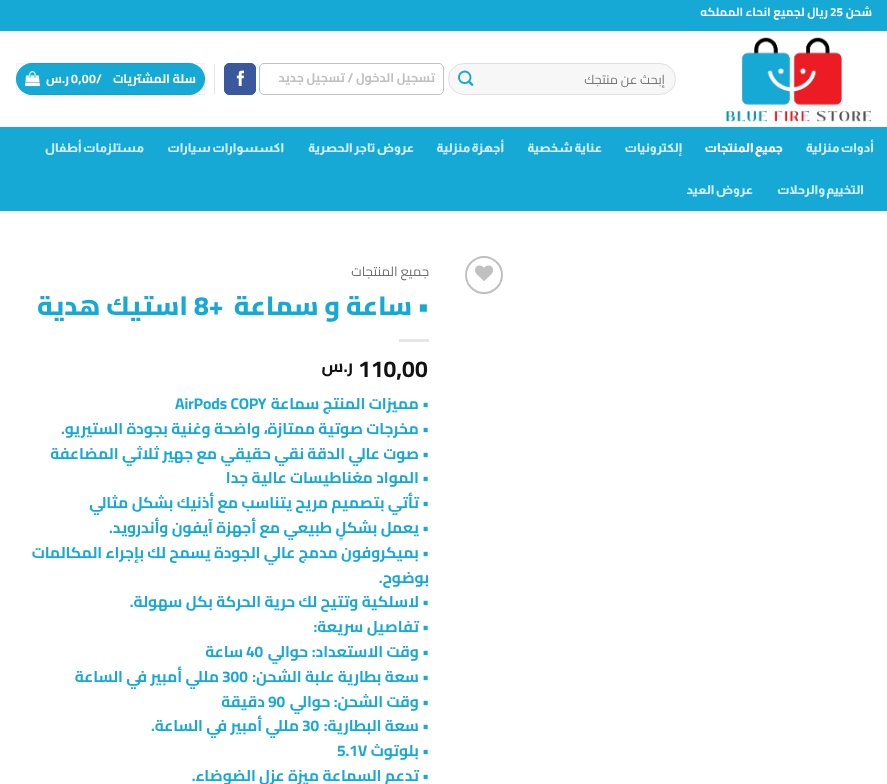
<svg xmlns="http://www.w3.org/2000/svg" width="887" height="784">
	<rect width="100%" height="100%" fill="#FFFFFF" />
	<rect x="0" y="0" width="887" height="31" fill="#16A9D5" />
	<text x="872" y="16" font-family="Cairo" font-size="11.6" font-weight="700" direction="rtl" fill="#FFFFFF">شحن</text>
	<text x="830" y="16" font-family="Cairo" font-size="11.6" font-weight="700" fill="#FFFFFF">25</text>
	<text x="828" y="16" font-family="Cairo" font-size="11.6" font-weight="700" direction="rtl" fill="#FFFFFF">ريال لجميع انحاء المملكه</text>
	<image x="725" y="37" width="147" height="85" href="assets/img1.png" />
	<rect x="448" y="63" width="228" height="32" rx="16" fill="#F7F7F7" />
	<rect x="448.5" y="63.5" width="227" height="31" rx="15.5" fill="none" stroke="#000000" stroke-opacity="0.09" />
	<text x="665" y="84" font-family="Cairo" font-size="12.75" direction="rtl" fill="#757575">إبحث عن منتجك</text>
	<image x="458" y="70" width="16" height="16" href="assets/img2.png" />
	<rect x="259.5" y="63.5" width="184" height="31" rx="4.5" fill="none" stroke="#C0C0C0" />
	<text x="435" y="82" font-family="Cairo" font-size="12.4" font-weight="700" letter-spacing="0.4" direction="rtl" fill="#C0C0C0">تسجيل الدخول / تسجيل جديد</text>
	<rect x="224.5" y="63.5" width="31" height="31" rx="4.5" fill="#3A589D" stroke="#3A589D" />
	<image x="236" y="70" width="8" height="16" href="assets/img3.png" />
	<rect x="214" y="64" width="1" height="30" fill="#E6E6E6" />
	<rect x="16" y="63" width="189" height="32" rx="16" fill="#16A9D5" />
	<rect x="16.5" y="63.5" width="188" height="31" fill="none" stroke="#000000" stroke-opacity="0.05" />
	<text x="196" y="83" font-family="Cairo" font-size="12.4" font-weight="700" letter-spacing="0.4" direction="rtl" fill="#FFFFFF">سلة المشتريات</text>
	<g font-family="Cairo" font-size="12.4" font-weight="700" letter-spacing="0.4" fill="#FFFFFF">
		<text x="96" y="83">/</text>
		<text x="71" y="83">0,00</text>
	</g>
	<text x="69" y="83" font-family="Cairo" font-size="12.4" font-weight="700" letter-spacing="0.4" direction="rtl" fill="#FFFFFF">ر.س</text>
	<image x="25" y="71" width="15" height="16" href="assets/img4.png" />
	<rect x="0" y="127" width="887" height="84" fill="#16A9D5" />
	<text x="874" y="152" word-spacing="-1" font-family="Almarai" font-size="12.4" font-weight="800" letter-spacing="0.25" direction="rtl" fill="#D0EEF7">أدوات منزلية</text>
	<text x="783" y="152" word-spacing="-1" font-family="Almarai" font-size="12.4" font-weight="800" letter-spacing="0.25" direction="rtl" fill="#FFFFFF">جميع المنتجات</text>
	<g font-family="Almarai" font-size="12.4" font-weight="800" letter-spacing="0.25" direction="rtl" fill="#D0EEF7">
		<text x="682" y="152">إلكترونيات</text>
		<text x="602" y="152" word-spacing="-1">عناية شخصية</text>
		<text x="504" y="152" word-spacing="-1">أجهزة منزلية</text>
		<text x="414" y="152" word-spacing="-1">عروض تاجر الحصرية</text>
		<text x="284" y="152" word-spacing="-1">اكسسوارات سيارات</text>
		<text x="144" y="152" word-spacing="-1">مستلزمات أطفال</text>
		<text x="864" y="194" word-spacing="-1">التخييم والرحلات</text>
		<text x="753" y="194" word-spacing="-1">عروض العيد</text>
	</g>
	<circle cx="484" cy="275" r="18" fill="none" stroke="#C0C0C0" stroke-width="2" />
	<image x="475" y="265" width="18" height="16" href="assets/img5.png" />
	<text x="429" y="276" font-family="Cairo" font-size="13.25" direction="rtl" fill="#6E6E6E">جميع المنتجات</text>
	<text x="429" y="315" font-family="Cairo" font-size="26.5" font-weight="800" direction="rtl" fill="#16A9D5">• ساعة و سماعة</text>
	<text x="194" y="315" font-family="Cairo" font-size="26.5" font-weight="800" fill="#16A9D5">8+</text>
	<text x="188" y="315" font-family="Cairo" font-size="26.5" font-weight="800" direction="rtl" fill="#16A9D5">استيك هدية</text>
	<rect x="399" y="339" width="30" height="3" fill="#E6E6E6" />
	<text x="358" y="377" font-family="Cairo" font-size="23" font-weight="700" fill="#111111">110,00</text>
	<text x="353" y="372" font-family="Cairo" font-size="17" font-weight="700" direction="rtl" fill="#111111">ر.س</text>
	<text x="429" y="409" font-family="Cairo" font-size="15.5" font-weight="700" direction="rtl" fill="#16A9D5">• مميزات المنتج سماعة</text>
	<text x="175" y="409" font-family="Cairo" font-size="15.5" font-weight="700" fill="#16A9D5">AirPods COPY</text>
	<g font-family="Cairo" font-size="15.5" font-weight="700" direction="rtl" fill="#16A9D5">
		<text x="429" y="434">• مخرجات صوتية ممتازة، واضحة وغنية بجودة الستيريو.</text>
		<text x="429" y="459">• صوت عالي الدقة نقي حقيقي مع جهير ثلاثي المضاعفة</text>
		<text x="429" y="483">• المواد مغناطيسات عالية جدا</text>
		<text x="429" y="508">• تأتي بتصميم مريح يتناسب مع أذنيك بشكل مثالي</text>
		<text x="429" y="533">• يعمل بشكلٍ طبيعي مع أجهزة آيفون وأندرويد.</text>
		<text x="429" y="558">• بميكروفون مدمج عالي الجودة يسمح لك بإجراء المكالمات</text>
		<text x="429" y="583">بوضوح.</text>
		<text x="429" y="607">• لاسلكية وتتيح لك حرية الحركة بكل سهولة.</text>
		<text x="429" y="632">• تفاصيل سريعة:</text>
		<text x="429" y="657">• وقت الاستعداد: حوالي</text>
	</g>
	<text x="246" y="657" font-family="Cairo" font-size="15.5" font-weight="700" fill="#16A9D5">40</text>
	<g font-family="Cairo" font-size="15.5" font-weight="700" direction="rtl" fill="#16A9D5">
		<text x="243" y="657">ساعة</text>
		<text x="429" y="682">• سعة بطارية علبة الشحن:</text>
	</g>
	<text x="222" y="682" font-family="Cairo" font-size="15.5" font-weight="700" fill="#16A9D5">300</text>
	<g font-family="Cairo" font-size="15.5" font-weight="700" direction="rtl" fill="#16A9D5">
		<text x="219" y="682">مللي أمبير في الساعة</text>
		<text x="429" y="707">• وقت الشحن: حوالي</text>
	</g>
	<text x="268" y="707" font-family="Cairo" font-size="15.5" font-weight="700" fill="#16A9D5">90</text>
	<g font-family="Cairo" font-size="15.5" font-weight="700" direction="rtl" fill="#16A9D5">
		<text x="265" y="707">دقيقة</text>
		<text x="429" y="731">• سعة البطارية:</text>
	</g>
	<text x="302" y="731" font-family="Cairo" font-size="15.5" font-weight="700" fill="#16A9D5">30</text>
	<g font-family="Cairo" font-size="15.5" font-weight="700" direction="rtl" fill="#16A9D5">
		<text x="299" y="731">مللي أمبير في الساعة.</text>
		<text x="429" y="756">• بلوتوث</text>
	</g>
	<text x="337" y="756" font-family="Cairo" font-size="15.5" font-weight="700" fill="#16A9D5">5.1V</text>
	<text x="429" y="781" font-family="Cairo" font-size="15.5" font-weight="700" direction="rtl" fill="#16A9D5">• تدعم السماعة ميزة عزل الضوضاء.</text>
</svg>
